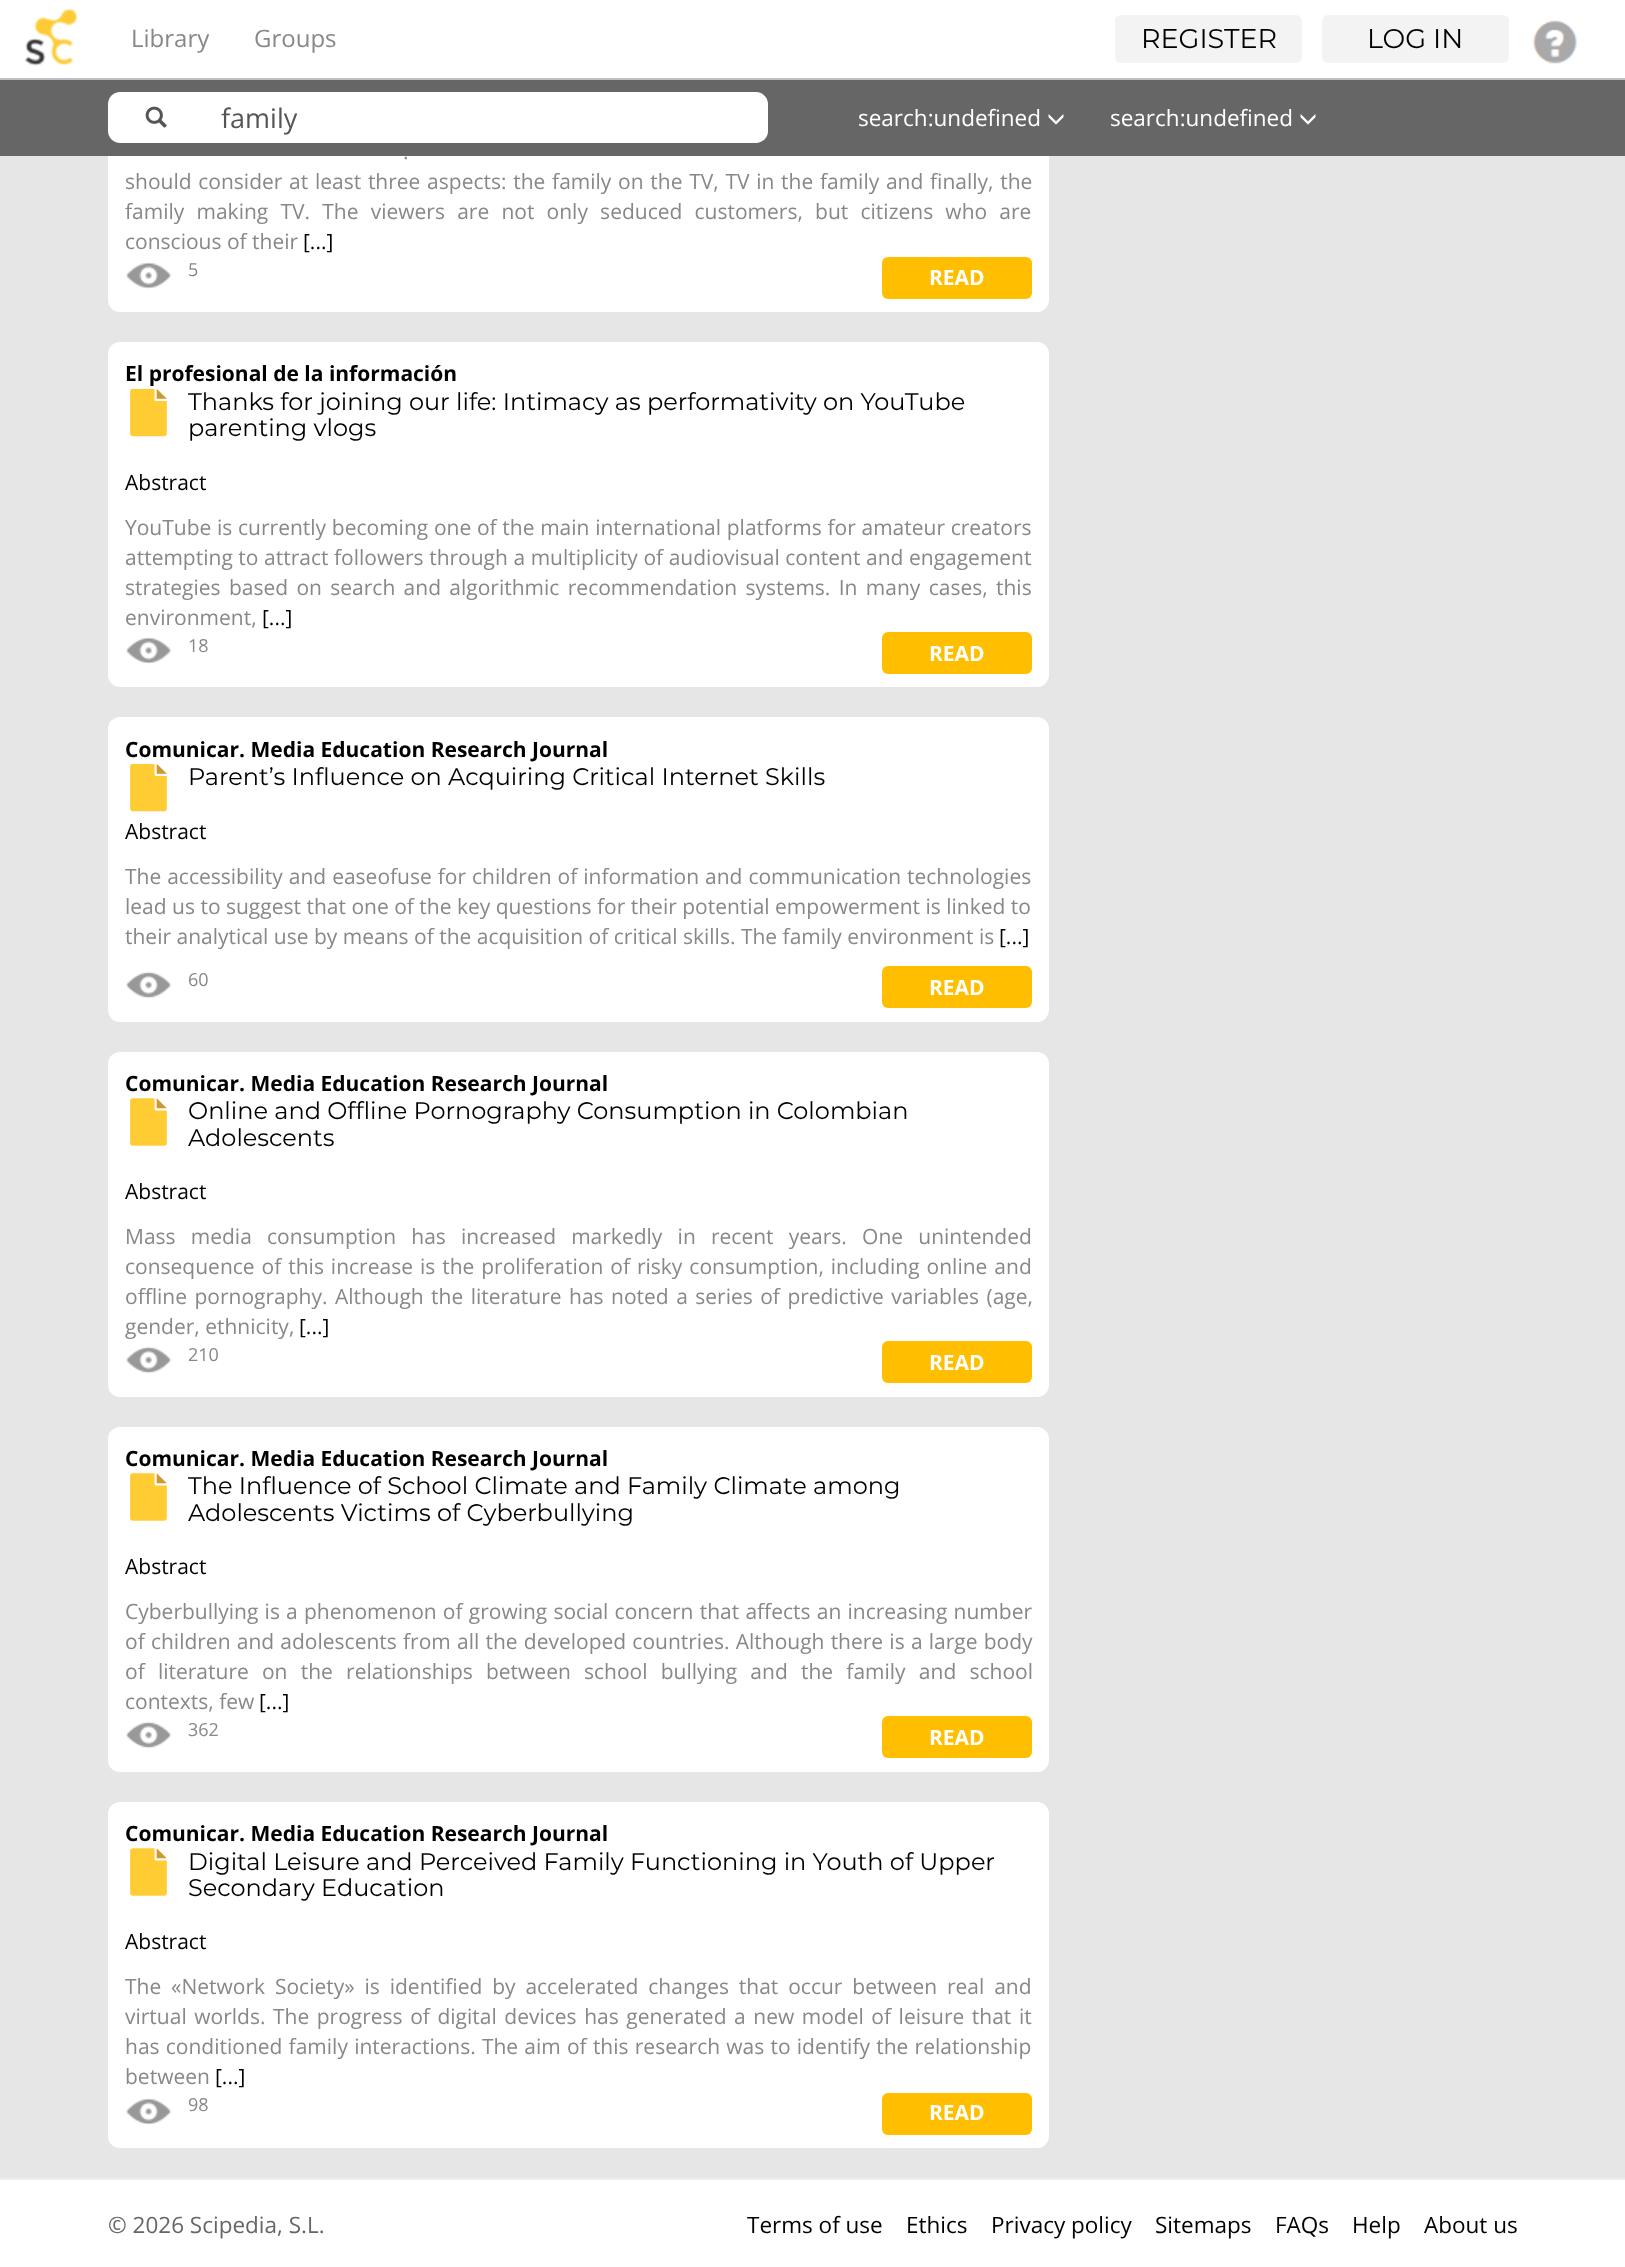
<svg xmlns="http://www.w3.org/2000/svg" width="1625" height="2267">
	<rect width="100%" height="100%" fill="#FFFFFF" />
	<rect x="0" y="156" width="1625" height="2022" fill="#E6E6E6" />
	<rect x="108" y="-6" width="941" height="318" rx="12" fill="#FFFFFF" />
	<rect x="0" y="78" width="1625" height="2" fill="#BEC0C1" />
	<image x="24" y="8" width="54" height="58" href="assets/img1.png" />
	<g font-family="Open Sans" font-size="24" fill="#888888">
		<text x="131" y="47">Library</text>
		<text x="254" y="47">Groups</text>
	</g>
	<rect x="1115" y="15" width="187" height="48" rx="6" fill="#F3F3F3" />
	<text x="1141" y="48" font-family="Montserrat" font-size="27" fill="#000000">REGISTER</text>
	<rect x="1322" y="15" width="187" height="48" rx="6" fill="#F3F3F3" />
	<text x="1367" y="48" font-family="Montserrat" font-size="27" fill="#000000">LOG IN</text>
	<image x="1532" y="20" width="45" height="44" href="assets/img2.png" />
	<rect x="0" y="80" width="1625" height="76" fill="#666666" />
	<path d="M120 92H203V143H120C113.5 143 108 137.5 108 131V104C108 97.5 113.5 92 120 92Z" fill="#FFFFFF" />
	<image x="145" y="106" width="22" height="22" href="assets/img3.png" />
	<path d="M203 92H756C762.5 92 768 97.5 768 104V131C768 137.5 762.5 143 756 143H203Z" fill="#FFFFFF" />
	<text x="221" y="128" font-family="Open Sans" font-size="27" fill="#555555">family</text>
	<text x="858" y="126" font-family="Open Sans" font-size="22.5" fill="#FFFFFF">search:undefined</text>
	<image x="1048" y="114" width="16" height="11" href="assets/img4.png" />
	<text x="1110" y="126" font-family="Open Sans" font-size="22.5" fill="#FFFFFF">search:undefined</text>
	<image x="1300" y="114" width="16" height="11" href="assets/img4.png" />
	<g font-family="Open Sans" font-size="21" fill="#888888">
		<text x="403" y="159" word-spacing="6">.</text>
		<text x="125" y="189" word-spacing="1.25">should consider at least three aspects: the family on the TV, TV in the family and finally, the</text>
		<text x="125" y="219" word-spacing="6.75">family making TV. The viewers are not only seduced customers, but citizens who are</text>
		<text x="125" y="249">conscious of their</text>
	</g>
	<text x="303" y="249" font-family="Open Sans" font-size="21" fill="#000000">[...]</text>
	<image x="126" y="262" width="46" height="27" href="assets/img5.png" />
	<text x="188" y="276" font-family="Open Sans" font-size="18" fill="#888888">5</text>
	<rect x="882" y="257" width="150" height="42" rx="6" fill="#FFBF00" />
	<text x="929" y="285" font-family="Open Sans" font-size="21" font-weight="700" fill="#FFFFFF">READ</text>
	<rect x="108" y="342" width="941" height="345" rx="12" fill="#FFFFFF" />
	<text x="125" y="381" font-family="Open Sans" font-size="21" font-weight="700" fill="#000000">El profesional de la información</text>
	<image x="130" y="389" width="37" height="48" href="assets/img6.png" />
	<g font-family="Montserrat" font-size="24" fill="#000000">
		<text x="188" y="410">Thanks for joining our life: Intimacy as performativity on YouTube</text>
		<text x="188" y="436">parenting vlogs</text>
	</g>
	<text x="125" y="490" font-family="Open Sans" font-size="21" fill="#000000">Abstract</text>
	<g font-family="Open Sans" font-size="21" fill="#888888">
		<text x="125" y="535" word-spacing="0.25">YouTube is currently becoming one of the main international platforms for amateur creators</text>
		<text x="125" y="565" word-spacing="0.1">attempting to attract followers through a multiplicity of audiovisual content and engagement</text>
		<text x="125" y="595" word-spacing="2.9">strategies based on search and algorithmic recommendation systems. In many cases, this</text>
		<text x="125" y="625">environment,</text>
	</g>
	<text x="262" y="625" font-family="Open Sans" font-size="21" fill="#000000">[...]</text>
	<image x="126" y="637" width="46" height="27" href="assets/img5.png" />
	<text x="188" y="652" font-family="Open Sans" font-size="18" fill="#888888">18</text>
	<rect x="882" y="632" width="150" height="42" rx="6" fill="#FFBF00" />
	<text x="929" y="661" font-family="Open Sans" font-size="21" font-weight="700" fill="#FFFFFF">READ</text>
	<rect x="108" y="717" width="941" height="305" rx="12" fill="#FFFFFF" />
	<text x="125" y="757" font-family="Open Sans" font-size="21" font-weight="700" fill="#000000">Comunicar. Media Education Research Journal</text>
	<image x="130" y="764" width="37" height="48" href="assets/img6.png" />
	<text x="188" y="785" font-family="Montserrat" font-size="24" fill="#000000">Parent’s Influence on Acquiring Critical Internet Skills</text>
	<text x="125" y="839" font-family="Open Sans" font-size="21" fill="#000000">Abstract</text>
	<g font-family="Open Sans" font-size="21" fill="#888888">
		<text x="125" y="884" word-spacing="0.5">The accessibility and easeofuse for children of information and communication technologies</text>
		<text x="125" y="914">lead us to suggest that one of the key questions for their potential empowerment is linked to</text>
		<text x="125" y="944">their analytical use by means of the acquisition of critical skills. The family environment is</text>
	</g>
	<text x="999" y="944" font-family="Open Sans" font-size="21" fill="#000000">[...]</text>
	<image x="126" y="971" width="46" height="28" href="assets/img7.png" />
	<text x="188" y="986" font-family="Open Sans" font-size="18" fill="#888888">60</text>
	<rect x="882" y="966" width="150" height="42" rx="6" fill="#FFBF00" />
	<text x="929" y="995" font-family="Open Sans" font-size="21" font-weight="700" fill="#FFFFFF">READ</text>
	<rect x="108" y="1052" width="941" height="345" rx="12" fill="#FFFFFF" />
	<text x="125" y="1091" font-family="Open Sans" font-size="21" font-weight="700" fill="#000000">Comunicar. Media Education Research Journal</text>
	<image x="130" y="1098" width="37" height="48" href="assets/img8.png" />
	<g font-family="Montserrat" font-size="24" fill="#000000">
		<text x="188" y="1119">Online and Offline Pornography Consumption in Colombian</text>
		<text x="188" y="1146">Adolescents</text>
	</g>
	<text x="125" y="1199" font-family="Open Sans" font-size="21" fill="#000000">Abstract</text>
	<g font-family="Open Sans" font-size="21" fill="#888888">
		<text x="125" y="1244" word-spacing="9.75">Mass media consumption has increased markedly in recent years. One unintended</text>
		<text x="125" y="1274" word-spacing="1.5">consequence of this increase is the proliferation of risky consumption, including online and</text>
		<text x="125" y="1304" word-spacing="2">offline pornography. Although the literature has noted a series of predictive variables (age,</text>
		<text x="125" y="1334">gender, ethnicity,</text>
	</g>
	<text x="299" y="1334" font-family="Open Sans" font-size="21" fill="#000000">[...]</text>
	<image x="126" y="1346" width="46" height="28" href="assets/img7.png" />
	<text x="188" y="1361" font-family="Open Sans" font-size="18" fill="#888888">210</text>
	<rect x="882" y="1341" width="150" height="42" rx="6" fill="#FFBF00" />
	<text x="929" y="1370" font-family="Open Sans" font-size="21" font-weight="700" fill="#FFFFFF">READ</text>
	<rect x="108" y="1427" width="941" height="345" rx="12" fill="#FFFFFF" />
	<text x="125" y="1466" font-family="Open Sans" font-size="21" font-weight="700" fill="#000000">Comunicar. Media Education Research Journal</text>
	<image x="130" y="1473" width="37" height="48" href="assets/img8.png" />
	<g font-family="Montserrat" font-size="24" fill="#000000">
		<text x="188" y="1494">The Influence of School Climate and Family Climate among</text>
		<text x="188" y="1521">Adolescents Victims of Cyberbullying</text>
	</g>
	<text x="125" y="1574" font-family="Open Sans" font-size="21" fill="#000000">Abstract</text>
	<g font-family="Open Sans" font-size="21" fill="#888888">
		<text x="125" y="1619" word-spacing="0.75">Cyberbullying is a phenomenon of growing social concern that affects an increasing number</text>
		<text x="125" y="1649" word-spacing="0.75">of children and adolescents from all the developed countries. Although there is a large body</text>
		<text x="125" y="1679" word-spacing="7.75">of literature on the relationships between school bullying and the family and school</text>
		<text x="125" y="1709">contexts, few</text>
	</g>
	<text x="259" y="1709" font-family="Open Sans" font-size="21" fill="#000000">[...]</text>
	<image x="126" y="1721" width="46" height="28" href="assets/img7.png" />
	<text x="188" y="1736" font-family="Open Sans" font-size="18" fill="#888888">362</text>
	<rect x="882" y="1716" width="150" height="42" rx="6" fill="#FFBF00" />
	<text x="929" y="1745" font-family="Open Sans" font-size="21" font-weight="700" fill="#FFFFFF">READ</text>
	<rect x="108" y="1802" width="941" height="346" rx="12" fill="#FFFFFF" />
	<text x="125" y="1841" font-family="Open Sans" font-size="21" font-weight="700" fill="#000000">Comunicar. Media Education Research Journal</text>
	<image x="130" y="1848" width="37" height="48" href="assets/img8.png" />
	<g font-family="Montserrat" font-size="24" fill="#000000">
		<text x="188" y="1870">Digital Leisure and Perceived Family Functioning in Youth of Upper</text>
		<text x="188" y="1896">Secondary Education</text>
	</g>
	<text x="125" y="1949" font-family="Open Sans" font-size="21" fill="#000000">Abstract</text>
	<g font-family="Open Sans" font-size="21" fill="#888888">
		<text x="125" y="1994" word-spacing="4.4">The «Network Society» is identified by accelerated changes that occur between real and</text>
		<text x="125" y="2024" word-spacing="2.1">virtual worlds. The progress of digital devices has generated a new model of leisure that it</text>
		<text x="125" y="2054" word-spacing="0.75">has conditioned family interactions. The aim of this research was to identify the relationship</text>
		<text x="125" y="2084">between</text>
	</g>
	<text x="215" y="2084" font-family="Open Sans" font-size="21" fill="#000000">[...]</text>
	<image x="126" y="2098" width="46" height="27" href="assets/img5.png" />
	<text x="188" y="2111" font-family="Open Sans" font-size="18" fill="#888888">98</text>
	<rect x="882" y="2093" width="150" height="42" rx="6" fill="#FFBF00" />
	<text x="929" y="2120" font-family="Open Sans" font-size="21" font-weight="700" fill="#FFFFFF">READ</text>
	<rect x="0" y="2178" width="1625" height="2" fill="#EEEEEE" />
	<text x="108" y="2233" font-family="Open Sans" font-size="22.5" fill="#666666">© 2026 Scipedia, S.L.</text>
	<g font-family="Open Sans" font-size="22.5" fill="#000000">
		<text x="747" y="2233">Terms of use</text>
		<text x="906" y="2233">Ethics</text>
		<text x="991" y="2233">Privacy policy</text>
		<text x="1155" y="2233">Sitemaps</text>
		<text x="1275" y="2233">FAQs</text>
		<text x="1352" y="2233">Help</text>
		<text x="1424" y="2233">About us</text>
	</g>
</svg>
